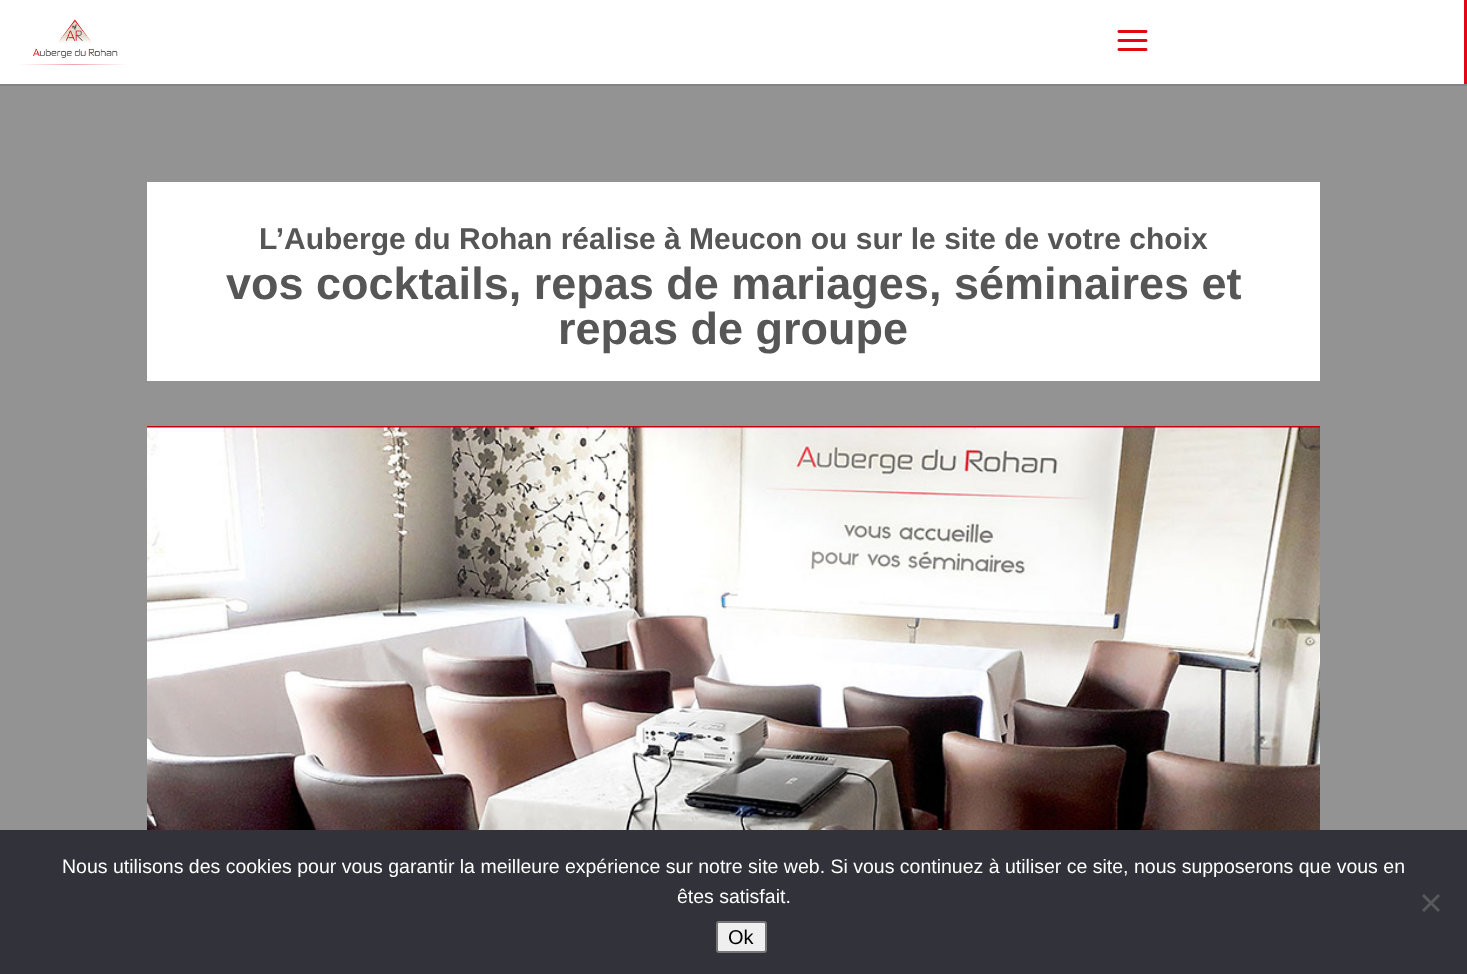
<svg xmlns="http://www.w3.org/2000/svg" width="1467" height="974">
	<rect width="100%" height="100%" fill="#939393" />
	<rect x="0" y="84" width="1467" height="2" fill="#848484" />
	<rect x="0" y="0" width="1464" height="84" fill="#FFFFFF" />
	<rect x="1464" y="0" width="3" height="84" fill="#E30613" />
	<image x="21" y="19" width="104" height="46" href="assets/img1.png" />
	<image x="1117" y="30" width="31" height="21" href="assets/img2.png" />
	<rect x="147" y="182" width="1173" height="199" fill="#FFFFFF" />
	<text x="259" y="249" font-family="Liberation Sans" font-size="30" font-weight="700" fill="#575656">L’Auberge du Rohan réalise à Meucon ou sur le site de votre choix</text>
	<g font-family="Liberation Sans" font-size="45" font-weight="700" fill="#575656">
		<text x="226" y="299">vos cocktails, repas de mariages, séminaires et</text>
		<text x="558" y="344">repas de groupe</text>
	</g>
	<rect x="147" y="426" width="1173" height="2" fill="#C40009" />
	<image x="147" y="427" width="1173" height="403" href="assets/img3.png" />
	<rect x="0" y="830" width="1467" height="144" fill="#32323A" />
	<g font-family="Liberation Sans" font-size="19.5" fill="#FFFFFF">
		<text x="62" y="873">Nous utilisons des cookies pour vous garantir la meilleure expérience sur notre site web. Si vous continuez à utiliser ce site, nous supposerons que vous en</text>
		<text x="677" y="903">êtes satisfait.</text>
	</g>
	<path d="M1438 894L1440 896L1424 912L1422 910Z" fill="#59595D" />
	<path d="M1422 896L1424 894L1440 910L1438 912Z" fill="#59595D" />
	<rect x="717" y="922" width="49" height="30" rx="2" fill="#EFEFEF" stroke="#767676" stroke-width="2" />
	<text x="728" y="944" font-family="Liberation Sans" font-size="20" fill="#000000">Ok</text>
</svg>
